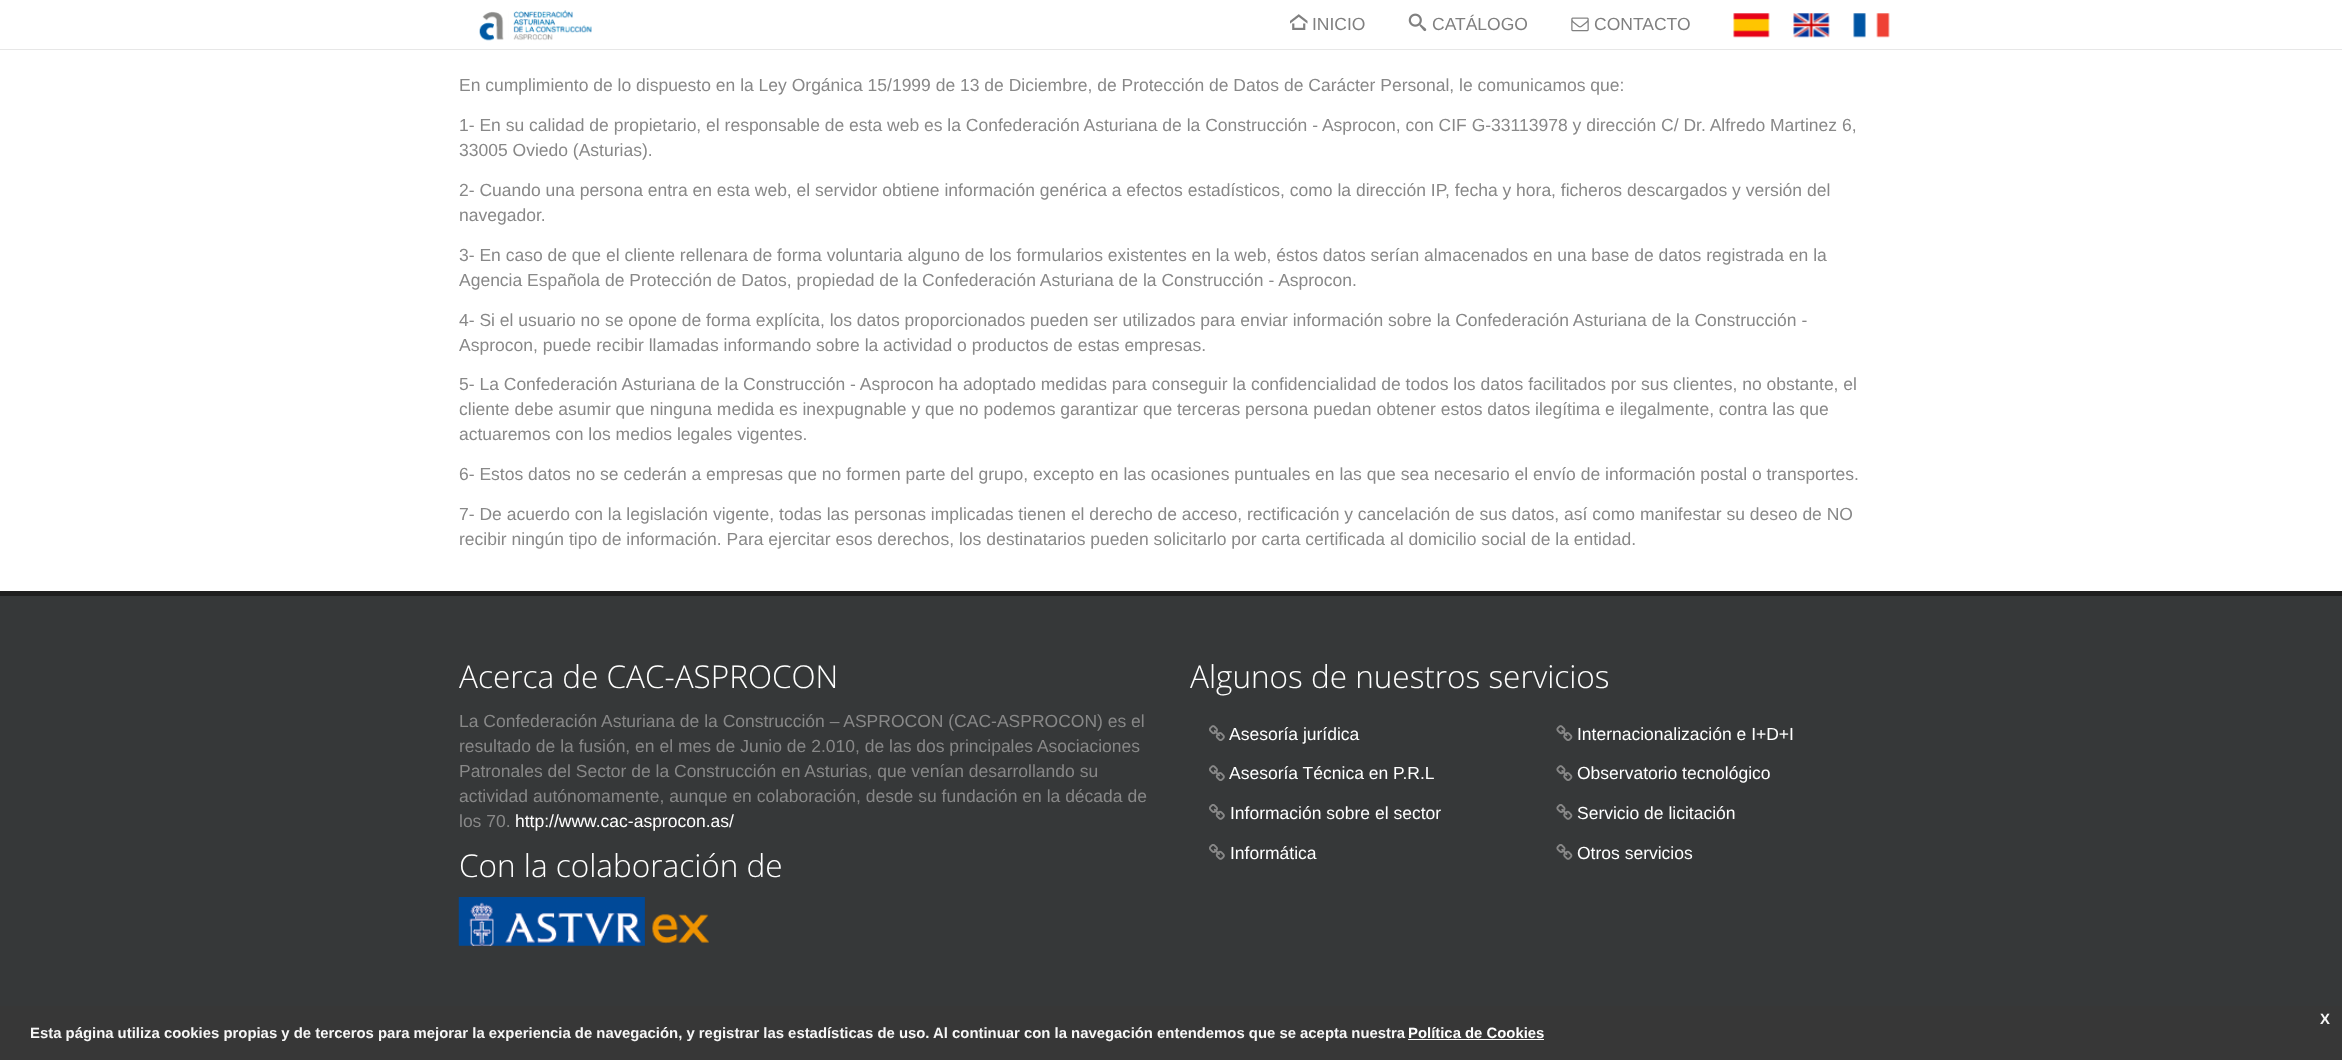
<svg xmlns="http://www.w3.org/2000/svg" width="2342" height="1060">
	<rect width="100%" height="100%" fill="#FFFFFF" />
	<rect x="0" y="49" width="2342" height="1" fill="#E7E7E7" />
	<image x="479" y="10" width="113" height="31" href="assets/img1.png" />
	<image x="1290" y="14" width="18" height="16" href="assets/img2.png" />
	<text x="1312" y="30" font-family="Liberation Sans" font-size="17.5" fill="#808080">INICIO</text>
	<image x="1408" y="13" width="19" height="19" href="assets/img3.png" />
	<text x="1432" y="30" font-family="Liberation Sans" font-size="17.5" fill="#808080">CATÁLOGO</text>
	<image x="1571" y="17" width="18" height="15" href="assets/img4.png" />
	<text x="1594" y="30" font-family="Liberation Sans" font-size="17.5" fill="#808080">CONTACTO</text>
	<image x="1733" y="13" width="37" height="25" href="assets/img5.png" />
	<image x="1793" y="13" width="37" height="25" href="assets/img6.png" />
	<image x="1853" y="13" width="37" height="25" href="assets/img7.png" />
	<g font-family="Liberation Sans" font-size="17.5" fill="#888888">
		<text x="459" y="91">En cumplimiento de lo dispuesto en la Ley Orgánica 15/1999 de 13 de Diciembre, de Protección de Datos de Carácter Personal, le comunicamos que:</text>
		<text x="459" y="131">1- En su calidad de propietario, el responsable de esta web es la Confederación Asturiana de la Construcción - Asprocon, con CIF G-33113978 y dirección C/ Dr. Alfredo Martinez 6,</text>
		<text x="459" y="156">33005 Oviedo (Asturias).</text>
		<text x="459" y="196">2- Cuando una persona entra en esta web, el servidor obtiene información genérica a efectos estadísticos, como la dirección IP, fecha y hora, ficheros descargados y versión del</text>
		<text x="459" y="221">navegador.</text>
		<text x="459" y="261">3- En caso de que el cliente rellenara de forma voluntaria alguno de los formularios existentes en la web, éstos datos serían almacenados en una base de datos registrada en la</text>
		<text x="459" y="286">Agencia Española de Protección de Datos, propiedad de la Confederación Asturiana de la Construcción - Asprocon.</text>
		<text x="459" y="326">4- Si el usuario no se opone de forma explícita, los datos proporcionados pueden ser utilizados para enviar información sobre la Confederación Asturiana de la Construcción -</text>
		<text x="459" y="351">Asprocon, puede recibir llamadas informando sobre la actividad o productos de estas empresas.</text>
		<text x="459" y="390">5- La Confederación Asturiana de la Construcción - Asprocon ha adoptado medidas para conseguir la confidencialidad de todos los datos facilitados por sus clientes, no obstante, el</text>
		<text x="459" y="415">cliente debe asumir que ninguna medida es inexpugnable y que no podemos garantizar que terceras persona puedan obtener estos datos ilegítima e ilegalmente, contra las que</text>
		<text x="459" y="440">actuaremos con los medios legales vigentes.</text>
		<text x="459" y="480">6- Estos datos no se cederán a empresas que no formen parte del grupo, excepto en las ocasiones puntuales en las que sea necesario el envío de información postal o transportes.</text>
		<text x="459" y="520">7- De acuerdo con la legislación vigente, todas las personas implicadas tienen el derecho de acceso, rectificación y cancelación de sus datos, así como manifestar su deseo de NO</text>
		<text x="459" y="545">recibir ningún tipo de información. Para ejercitar esos derechos, los destinatarios pueden solicitarlo por carta certificada al domicilio social de la entidad.</text>
	</g>
	<rect x="0" y="596" width="2342" height="410" fill="#363839" />
	<rect x="0" y="591" width="2342" height="5" fill="#1F1F1F" />
	<text x="459" y="688" font-family="Open Sans" font-size="31.5" font-weight="300" fill="#FFFFFF">Acerca de CAC-ASPROCON</text>
	<g font-family="Liberation Sans" font-size="17.5" fill="#888888">
		<text x="459" y="727">La Confederación Asturiana de la Construcción – ASPROCON (CAC-ASPROCON) es el</text>
		<text x="459" y="752">resultado de la fusión, en el mes de Junio de 2.010, de las dos principales Asociaciones</text>
		<text x="459" y="777">Patronales del Sector de la Construcción en Asturias, que venían desarrollando su</text>
		<text x="459" y="802">actividad autónomamente, aunque en colaboración, desde su fundación en la década de</text>
		<text x="459" y="827">los 70.</text>
	</g>
	<text x="515" y="827" font-family="Liberation Sans" font-size="17.5" fill="#FFFFFF">http://www.cac-asprocon.as/</text>
	<text x="459" y="877" font-family="Open Sans" font-size="31.5" font-weight="300" fill="#FFFFFF">Con la colaboración de</text>
	<image x="458" y="897" width="251" height="49" href="assets/img8.png" />
	<text x="1190" y="688" font-family="Open Sans" font-size="31.5" font-weight="300" fill="#FFFFFF">Algunos de nuestros servicios</text>
	<image x="1209" y="725" width="16" height="16" href="assets/img9.png" />
	<text x="1229" y="740" font-family="Liberation Sans" font-size="17.5" fill="#FFFFFF">Asesoría jurídica</text>
	<image x="1209" y="765" width="16" height="16" href="assets/img9.png" />
	<text x="1229" y="779" font-family="Liberation Sans" font-size="17.5" fill="#FFFFFF">Asesoría Técnica en P.R.L</text>
	<image x="1209" y="804" width="16" height="16" href="assets/img10.png" />
	<text x="1230" y="819" font-family="Liberation Sans" font-size="17.5" fill="#FFFFFF">Información sobre el sector</text>
	<image x="1209" y="844" width="16" height="16" href="assets/img10.png" />
	<text x="1230" y="859" font-family="Liberation Sans" font-size="17.5" fill="#FFFFFF">Informática</text>
	<image x="1556" y="725" width="17" height="16" href="assets/img11.png" />
	<text x="1577" y="740" font-family="Liberation Sans" font-size="17.5" fill="#FFFFFF">Internacionalización e I+D+I</text>
	<image x="1556" y="765" width="17" height="16" href="assets/img11.png" />
	<text x="1577" y="779" font-family="Liberation Sans" font-size="17.5" fill="#FFFFFF">Observatorio tecnológico</text>
	<image x="1556" y="804" width="17" height="16" href="assets/img12.png" />
	<text x="1577" y="819" font-family="Liberation Sans" font-size="17.5" fill="#FFFFFF">Servicio de licitación</text>
	<image x="1556" y="844" width="17" height="16" href="assets/img12.png" />
	<text x="1577" y="859" font-family="Liberation Sans" font-size="17.5" fill="#FFFFFF">Otros servicios</text>
	<rect x="0" y="1006" width="2342" height="54" fill="#373737" />
	<g font-family="Liberation Sans" font-size="14.88" font-weight="700" fill="#F7F7F7">
		<text x="2320" y="1024">X</text>
		<text x="30" y="1038">Esta página utiliza cookies propias y de terceros para mejorar la experiencia de navegación, y registrar las estadísticas de uso. Al continuar con la navegación entendemos que se acepta nuestra</text>
	</g>
	<text x="1408" y="1038" font-family="Liberation Sans" font-size="14.88" font-weight="700" fill="#FFFFFF">Política de Cookies</text>
	<rect x="1408" y="1039" width="136" height="1" fill="#FFFFFF" />
</svg>
